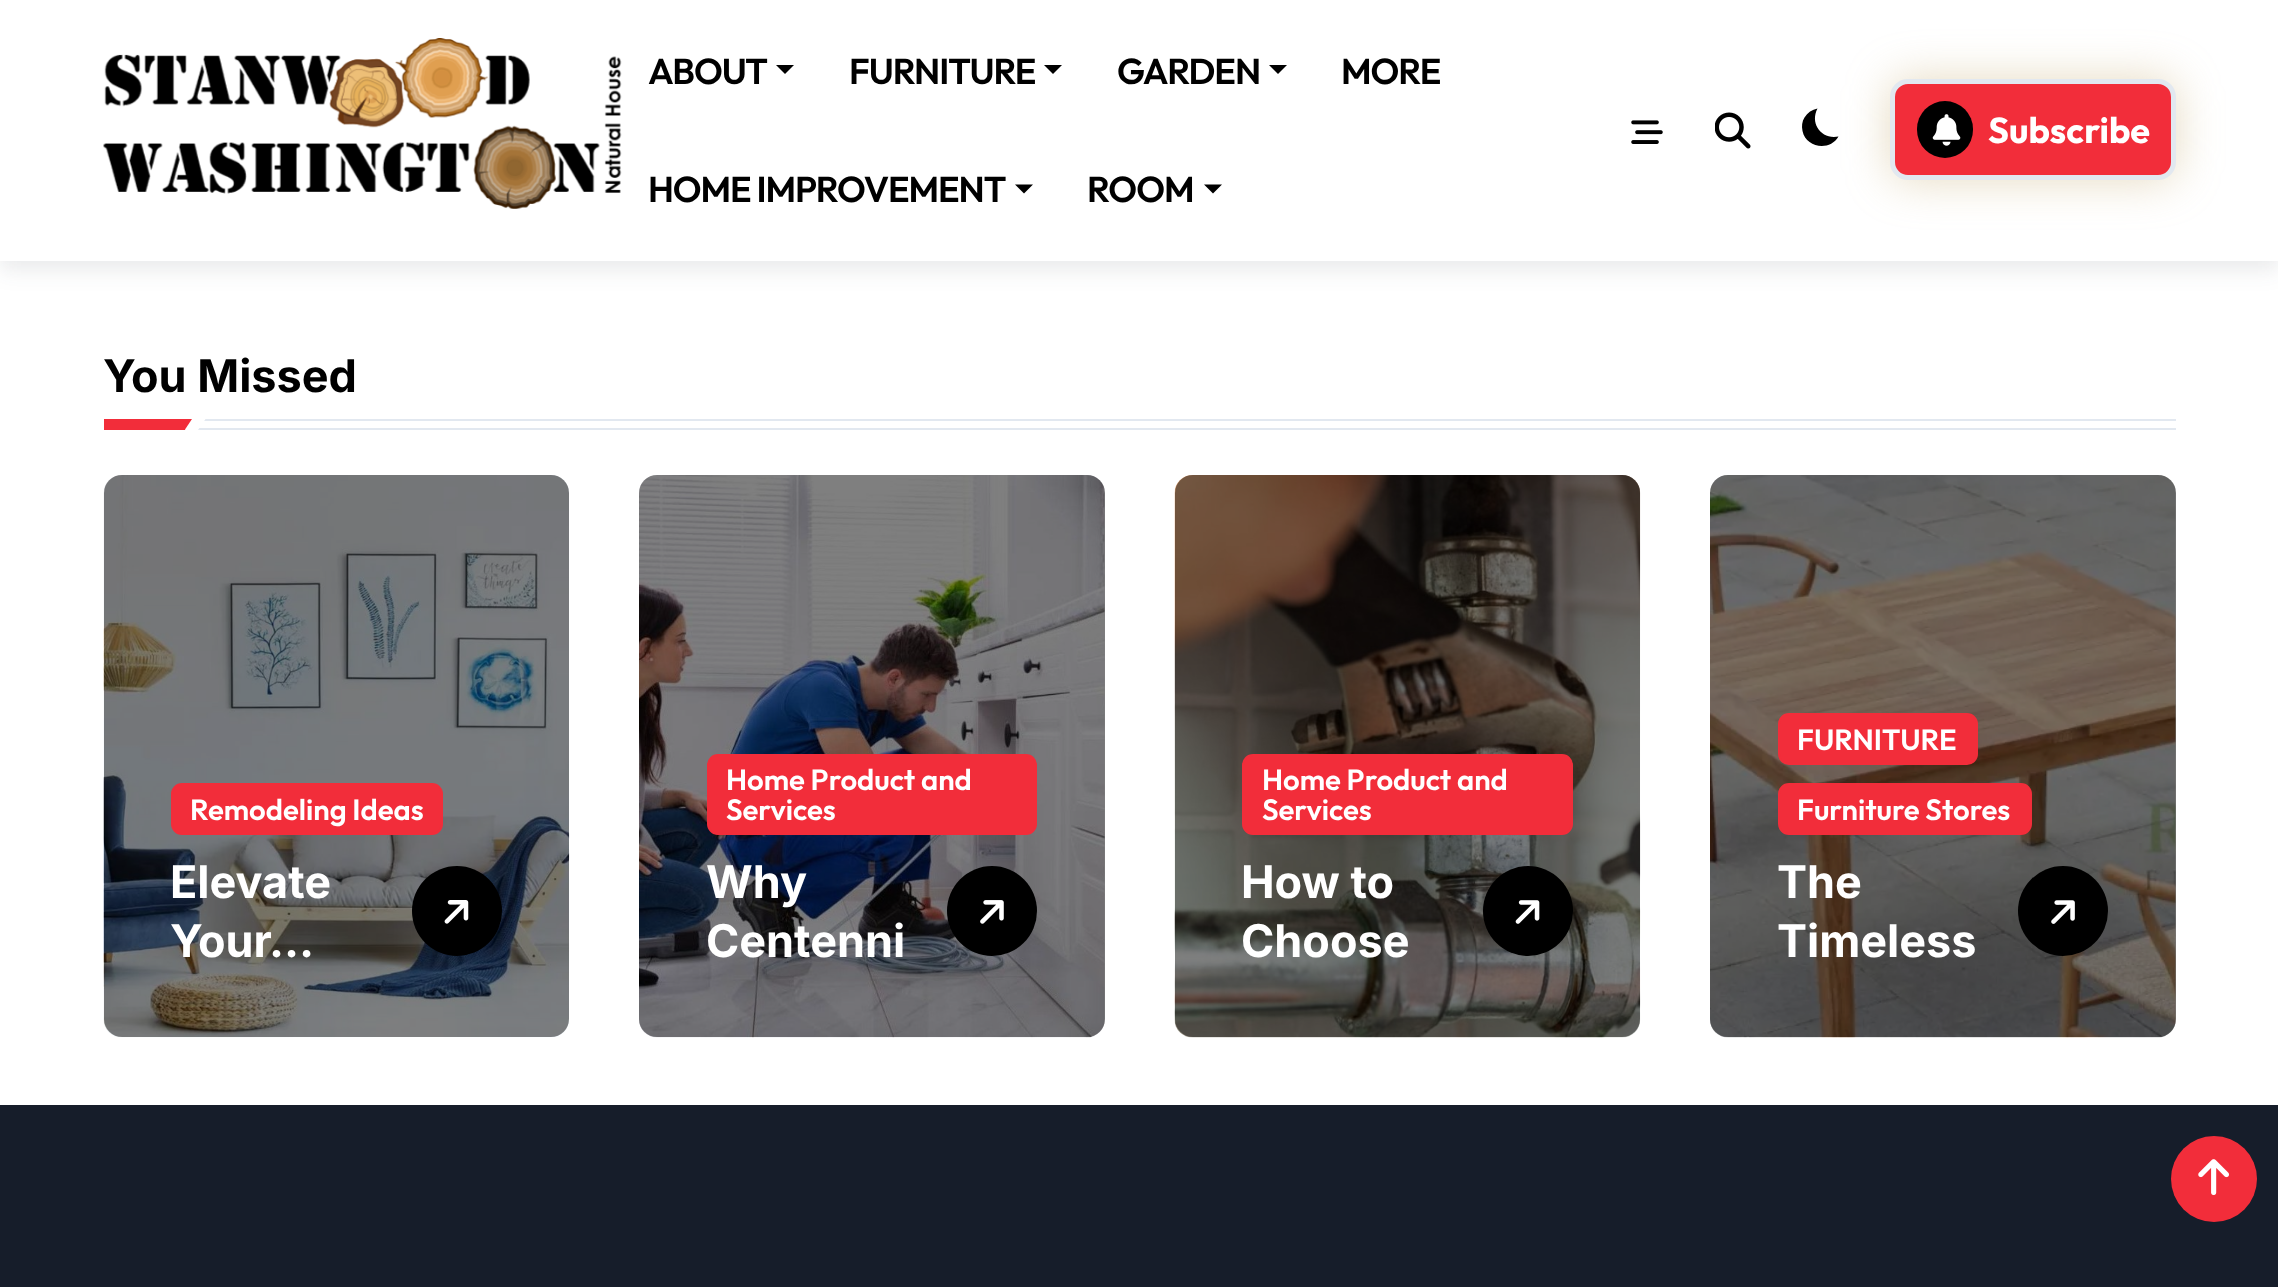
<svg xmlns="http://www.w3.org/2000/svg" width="2278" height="1287">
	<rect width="100%" height="100%" fill="#FFFFFF" />
	<rect x="0" y="9" width="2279" height="261" fill="#252F3F" fill-opacity="0.1" filter="blur(11px)" />
	<rect x="0" y="0" width="2278" height="261" fill="#FFFFFF" />
	<image x="103" y="38" width="519" height="171" href="assets/img1.png" />
	<text x="648" y="84" font-family="Outfit" font-size="36" font-weight="600" letter-spacing="-1.1" fill="#000000">ABOUT</text>
	<path d="M776 65H794L785 74Z" fill="#000000" />
	<text x="849" y="84" font-family="Outfit" font-size="36" font-weight="600" letter-spacing="-1.1" fill="#000000">FURNITURE</text>
	<path d="M1044 65H1062L1053 74Z" fill="#000000" />
	<text x="1117" y="84" font-family="Outfit" font-size="36" font-weight="600" letter-spacing="-1.1" fill="#000000">GARDEN</text>
	<path d="M1269 65H1287L1278 74Z" fill="#000000" />
	<g font-family="Outfit" font-size="36" font-weight="600" letter-spacing="-1.1" fill="#000000">
		<text x="1341" y="84">MORE</text>
		<text x="648" y="202">HOME IMPROVEMENT</text>
	</g>
	<path d="M1015 184.5H1033L1024 193.5Z" fill="#000000" />
	<text x="1087" y="202" font-family="Outfit" font-size="36" font-weight="600" letter-spacing="-1.1" fill="#000000">ROOM</text>
	<path d="M1204 184.5H1222L1213 193.5Z" fill="#000000" />
	<image x="1631" y="120" width="32" height="24" href="assets/img2.png" />
	<image x="1715" y="112" width="36" height="37" href="assets/img3.png" />
	<path d="M1838.5 136.5C1821.5 140 1809.5 123.5 1817.5 108.5C1812 109.5 1807.5 112.5 1804.5 117.5C1802 121.5 1801.5 126 1802.5 131C1806 148 1830 151.5 1838.5 136.5Z" fill="#000000" />
	<rect x="1890" y="79" width="286" height="101" rx="18" fill="#C1A362" fill-opacity="0.4" filter="blur(22.5px)" />
	<rect x="1892.5" y="81.5" width="281" height="96" rx="15.5" fill="#F22D3A" stroke="#E2E8F0" stroke-width="5" />
	<rect x="1917" y="101" width="56" height="57" rx="28" fill="#000000" />
	<image x="1932" y="114" width="29" height="32" href="assets/img4.png" />
	<text x="1988" y="143" font-family="Outfit" font-size="36" font-weight="700" fill="#FFFFFF">Subscribe</text>
	<text x="103" y="392" font-family="Inter" font-size="45" font-weight="700" fill="#000000">You Missed</text>
	<rect x="204" y="419" width="1972" height="2" fill="#E2E8F0" />
	<rect x="198" y="428" width="1978" height="2" fill="#E2E8F0" />
	<rect x="104" y="419" width="88" height="11" fill="#F22D3A" />
	<path d="M185 429.5L192 419H205.5L197 431.5H185Z" fill="#FFFFFF" />
	<image x="103" y="475" width="467" height="563" href="assets/img5.png" />
	<rect x="104" y="475" width="465" height="562" rx="18" fill="#000000" fill-opacity="0.5" />
	<rect x="172" y="784" width="270" height="50" rx="10" fill="#F22D3A" stroke="#F22D3A" stroke-width="2" />
	<text x="190" y="820" font-family="Outfit" font-size="29.25" font-weight="600" fill="#FFFFFF">Remodeling Ideas</text>
	<g font-family="Inter" font-size="45" font-weight="700" fill="#FFFFFF">
		<text x="170" y="898">Elevate</text>
		<text x="170" y="957">Your…</text>
	</g>
	<circle cx="457" cy="911" r="45" fill="#000000" />
	<image x="444" y="900" width="25" height="24" href="assets/img6.png" />
	<image x="639" y="475" width="466" height="563" href="assets/img7.png" />
	<rect x="639" y="475" width="466" height="562" rx="18" fill="#000000" fill-opacity="0.5" />
	<rect x="708" y="755" width="328" height="79" rx="10" fill="#F22D3A" stroke="#F22D3A" stroke-width="2" />
	<g font-family="Outfit" font-size="29.25" font-weight="600" fill="#FFFFFF">
		<text x="726" y="790">Home Product and</text>
		<text x="726" y="820">Services</text>
	</g>
	<g font-family="Inter" font-size="45" font-weight="700" fill="#FFFFFF">
		<text x="706" y="898">Why</text>
		<text x="706" y="957">Centenni</text>
	</g>
	<circle cx="992" cy="911" r="45" fill="#000000" />
	<image x="980" y="900" width="24" height="24" href="assets/img8.png" />
	<image x="1174" y="475" width="467" height="563" href="assets/img9.png" />
	<rect x="1175" y="475" width="465" height="562" rx="18" fill="#000000" fill-opacity="0.5" />
	<rect x="1243" y="755" width="329" height="79" rx="10" fill="#F22D3A" stroke="#F22D3A" stroke-width="2" />
	<g font-family="Outfit" font-size="29.25" font-weight="600" fill="#FFFFFF">
		<text x="1262" y="790">Home Product and</text>
		<text x="1262" y="820">Services</text>
	</g>
	<g font-family="Inter" font-size="45" font-weight="700" fill="#FFFFFF">
		<text x="1241" y="898">How to</text>
		<text x="1241" y="957">Choose</text>
	</g>
	<circle cx="1528" cy="911" r="45" fill="#000000" />
	<image x="1515" y="900" width="25" height="24" href="assets/img10.png" />
	<image x="1710" y="475" width="466" height="563" href="assets/img11.png" />
	<rect x="1710" y="475" width="466" height="562" rx="18" fill="#000000" fill-opacity="0.5" />
	<rect x="1779" y="714" width="198" height="50" rx="10" fill="#F22D3A" stroke="#F22D3A" stroke-width="2" />
	<text x="1797" y="750" font-family="Outfit" font-size="29.25" font-weight="600" fill="#FFFFFF">FURNITURE</text>
	<rect x="1779" y="784" width="252" height="50" rx="10" fill="#F22D3A" stroke="#F22D3A" stroke-width="2" />
	<text x="1797" y="820" font-family="Outfit" font-size="29.25" font-weight="600" fill="#FFFFFF">Furniture Stores</text>
	<g font-family="Inter" font-size="45" font-weight="700" fill="#FFFFFF">
		<text x="1777" y="898">The</text>
		<text x="1777" y="957">Timeless</text>
	</g>
	<circle cx="2063" cy="911" r="45" fill="#000000" />
	<image x="2051" y="900" width="24" height="24" href="assets/img12.png" />
	<rect x="0" y="1105" width="2278" height="182" fill="#161D2A" />
	<circle cx="2214" cy="1179" r="43" fill="#F22D3A" />
	<image x="2198" y="1159" width="31" height="37" href="assets/img13.png" />
</svg>
